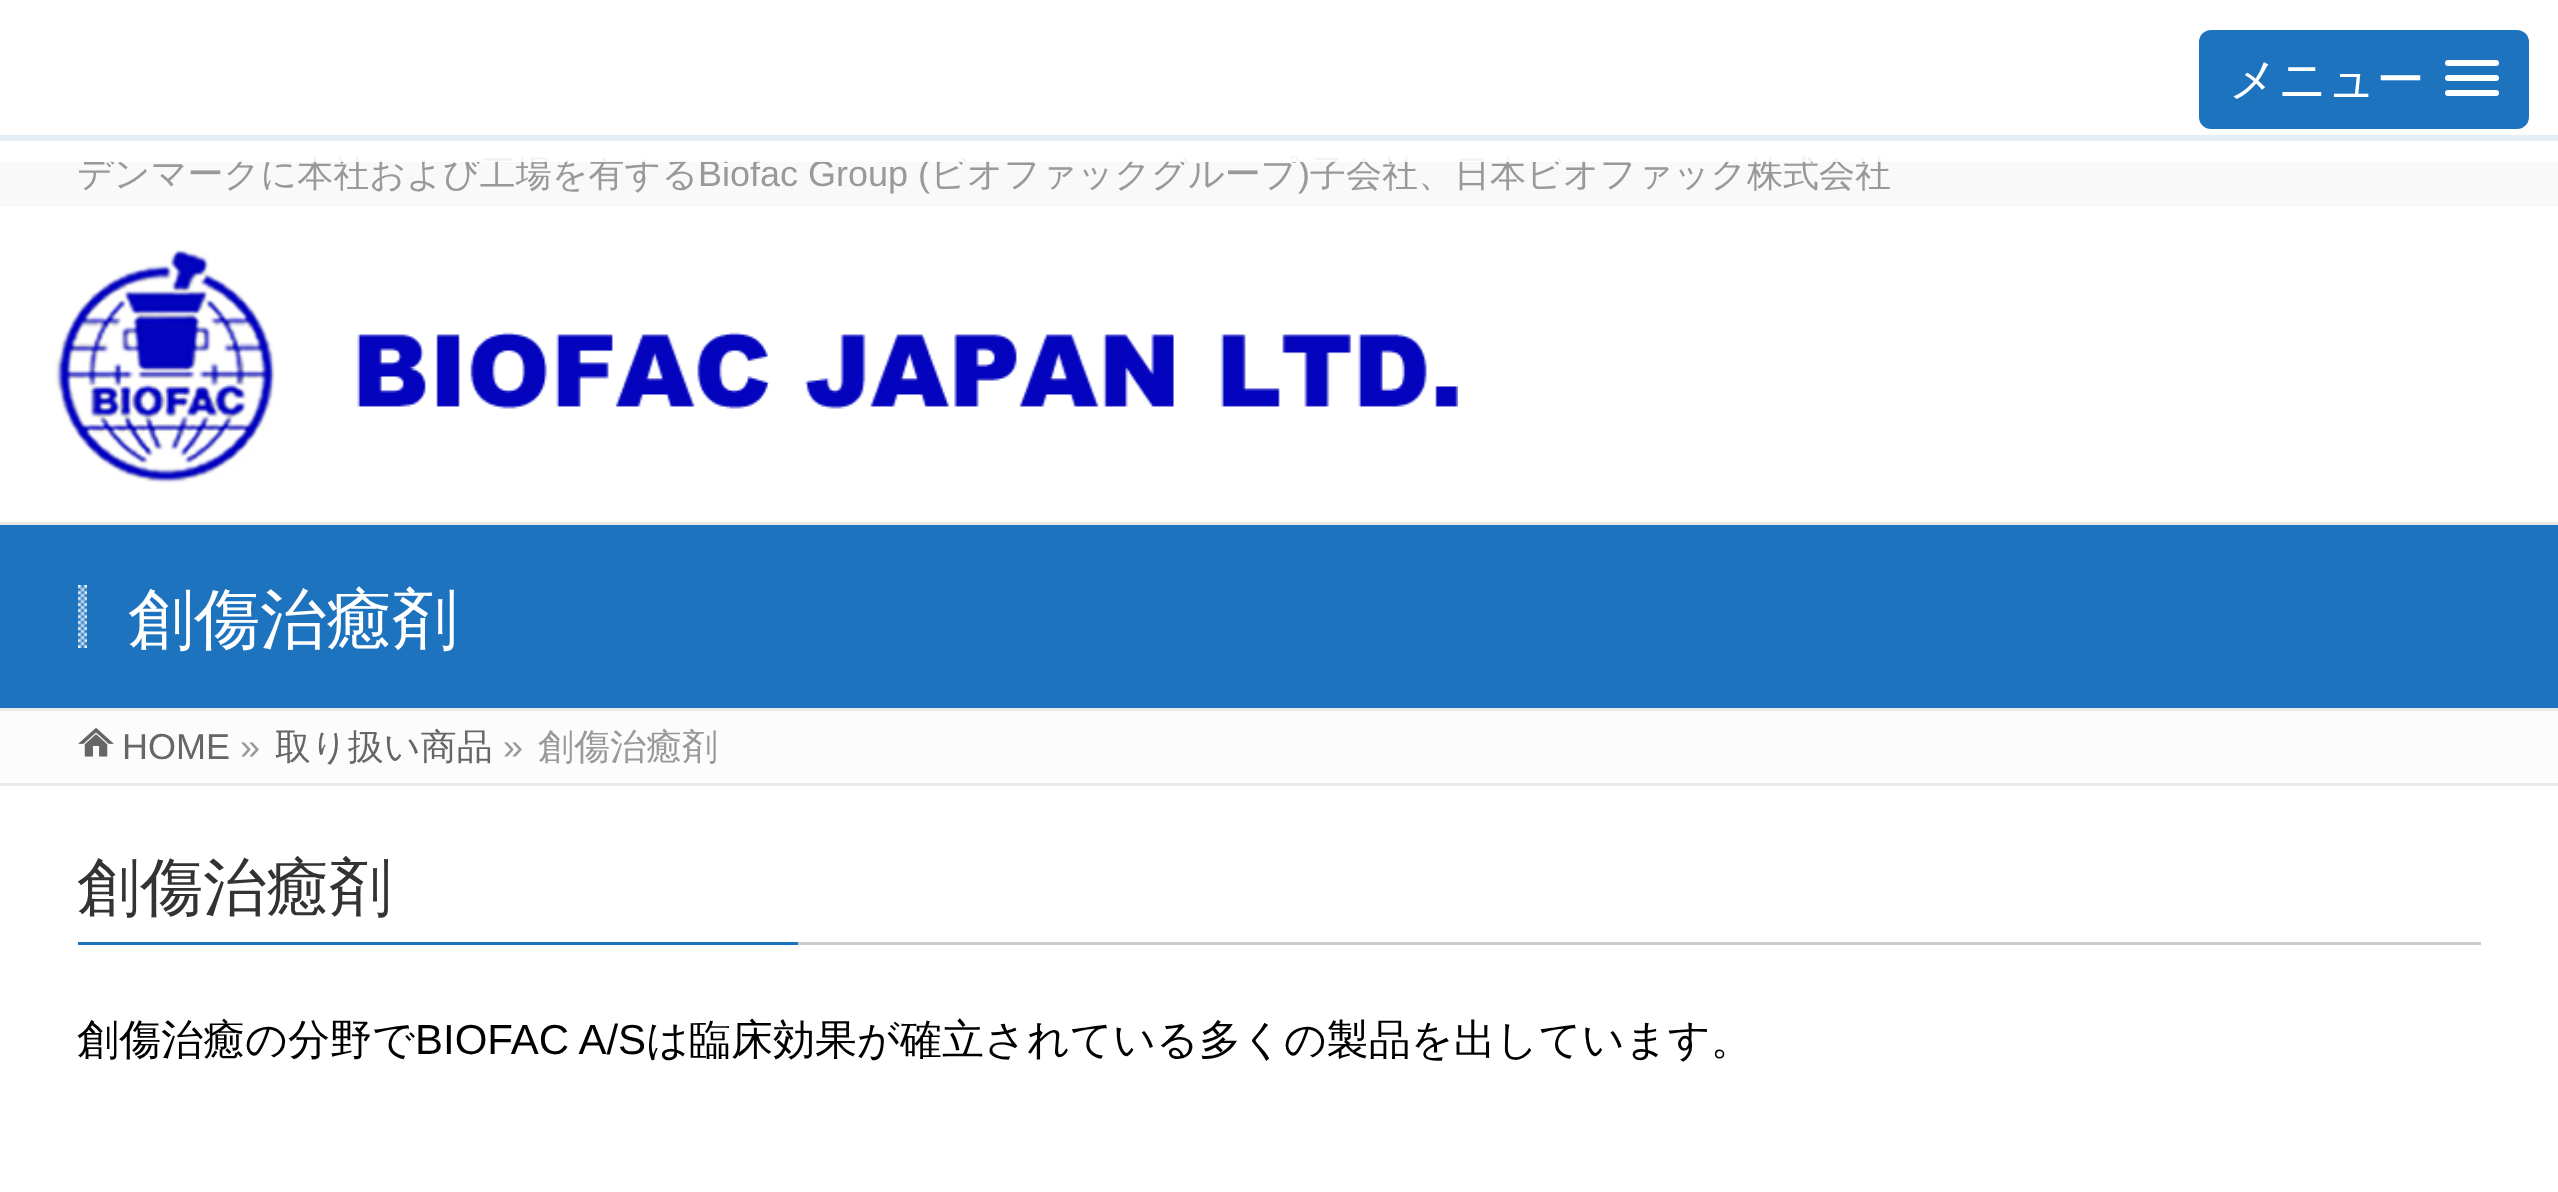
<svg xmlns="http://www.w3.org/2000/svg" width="2558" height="1192">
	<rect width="100%" height="100%" fill="#FFFFFF" />
	<rect x="0" y="141" width="2558" height="66" fill="#F9F9F9" />
	<rect x="0" y="135" width="2558" height="6" fill="#1E73BE" />
	<text x="77" y="186" font-family="WenQuanYi Zen Hei" font-size="36" font-weight="500" fill="#999999">デンマークに本社および工場を有する</text>
	<text x="698" y="186" font-family="Liberation Sans" font-size="36" fill="#999999">Biofac Group (</text>
	<text x="930" y="186" font-family="WenQuanYi Zen Hei" font-size="36" font-weight="500" fill="#999999">ビオファックグループ</text>
	<text x="1298" y="186" font-family="Liberation Sans" font-size="36" fill="#999999">)</text>
	<text x="1310" y="186" font-family="WenQuanYi Zen Hei" font-size="36" font-weight="500" fill="#999999">子会社、日本ビオファック株式会社</text>
	<rect x="0" y="135" width="2558" height="27" fill="#FFFFFF" fill-opacity="0.87" />
	<rect x="2199" y="30" width="330" height="99" rx="12" fill="#1E73BE" />
	<text x="2229" y="96" font-family="WenQuanYi Zen Hei" font-size="48" font-weight="500" fill="#FFFFFF">メニュー</text>
	<rect x="2445" y="60" width="54" height="6" rx="3" fill="#FFFFFF" />
	<rect x="2445" y="75" width="54" height="6" rx="3" fill="#FFFFFF" />
	<rect x="2445" y="90" width="54" height="6" rx="3" fill="#FFFFFF" />
	<image x="55" y="250" width="1403" height="233" href="assets/img1.png" />
	<rect x="0" y="525" width="2558" height="183" fill="#1E73BE" />
	<rect x="0" y="522" width="2558" height="3" fill="#E9E9E9" />
	<rect x="0" y="708" width="2558" height="3" fill="#E9E9E9" />
	<image x="78" y="585" width="9" height="63" href="assets/img2.png" />
	<text x="128" y="642" font-family="WenQuanYi Zen Hei" font-size="66" font-weight="500" fill="#FFFFFF">創傷治癒剤</text>
	<rect x="0" y="711" width="2558" height="72" fill="#FCFCFC" />
	<image x="78" y="727" width="36" height="30" href="assets/img3.png" />
	<text x="122" y="759" font-family="Liberation Sans" font-size="36" fill="#666666">HOME</text>
	<text x="240" y="759" font-family="Liberation Sans" font-size="36" fill="#999999">»</text>
	<text x="275" y="759" font-family="WenQuanYi Zen Hei" font-size="36" font-weight="500" fill="#666666">取り扱い商品</text>
	<text x="503" y="759" font-family="Liberation Sans" font-size="36" fill="#999999">»</text>
	<text x="538" y="759" font-family="WenQuanYi Zen Hei" font-size="36" font-weight="500" fill="#999999">創傷治癒剤</text>
	<rect x="0" y="783" width="2558" height="3" fill="#E9E9E9" />
	<rect x="798" y="942" width="1683" height="3" fill="#CCCCCC" />
	<text x="77" y="909" font-family="WenQuanYi Zen Hei" font-size="63" font-weight="500" fill="#333333">創傷治癒剤</text>
	<rect x="78" y="942" width="720" height="3" fill="#1E73BE" />
	<text x="77" y="1054" font-family="WenQuanYi Zen Hei" font-size="42" font-weight="500" fill="#000000">創傷治癒の分野で</text>
	<text x="415" y="1054" font-family="Liberation Sans" font-size="42" fill="#000000">BIOFAC A/S</text>
	<text x="646" y="1054" font-family="WenQuanYi Zen Hei" font-size="42" font-weight="500" fill="#000000">は臨床効果が確立されている多くの製品を出しています。</text>
</svg>
